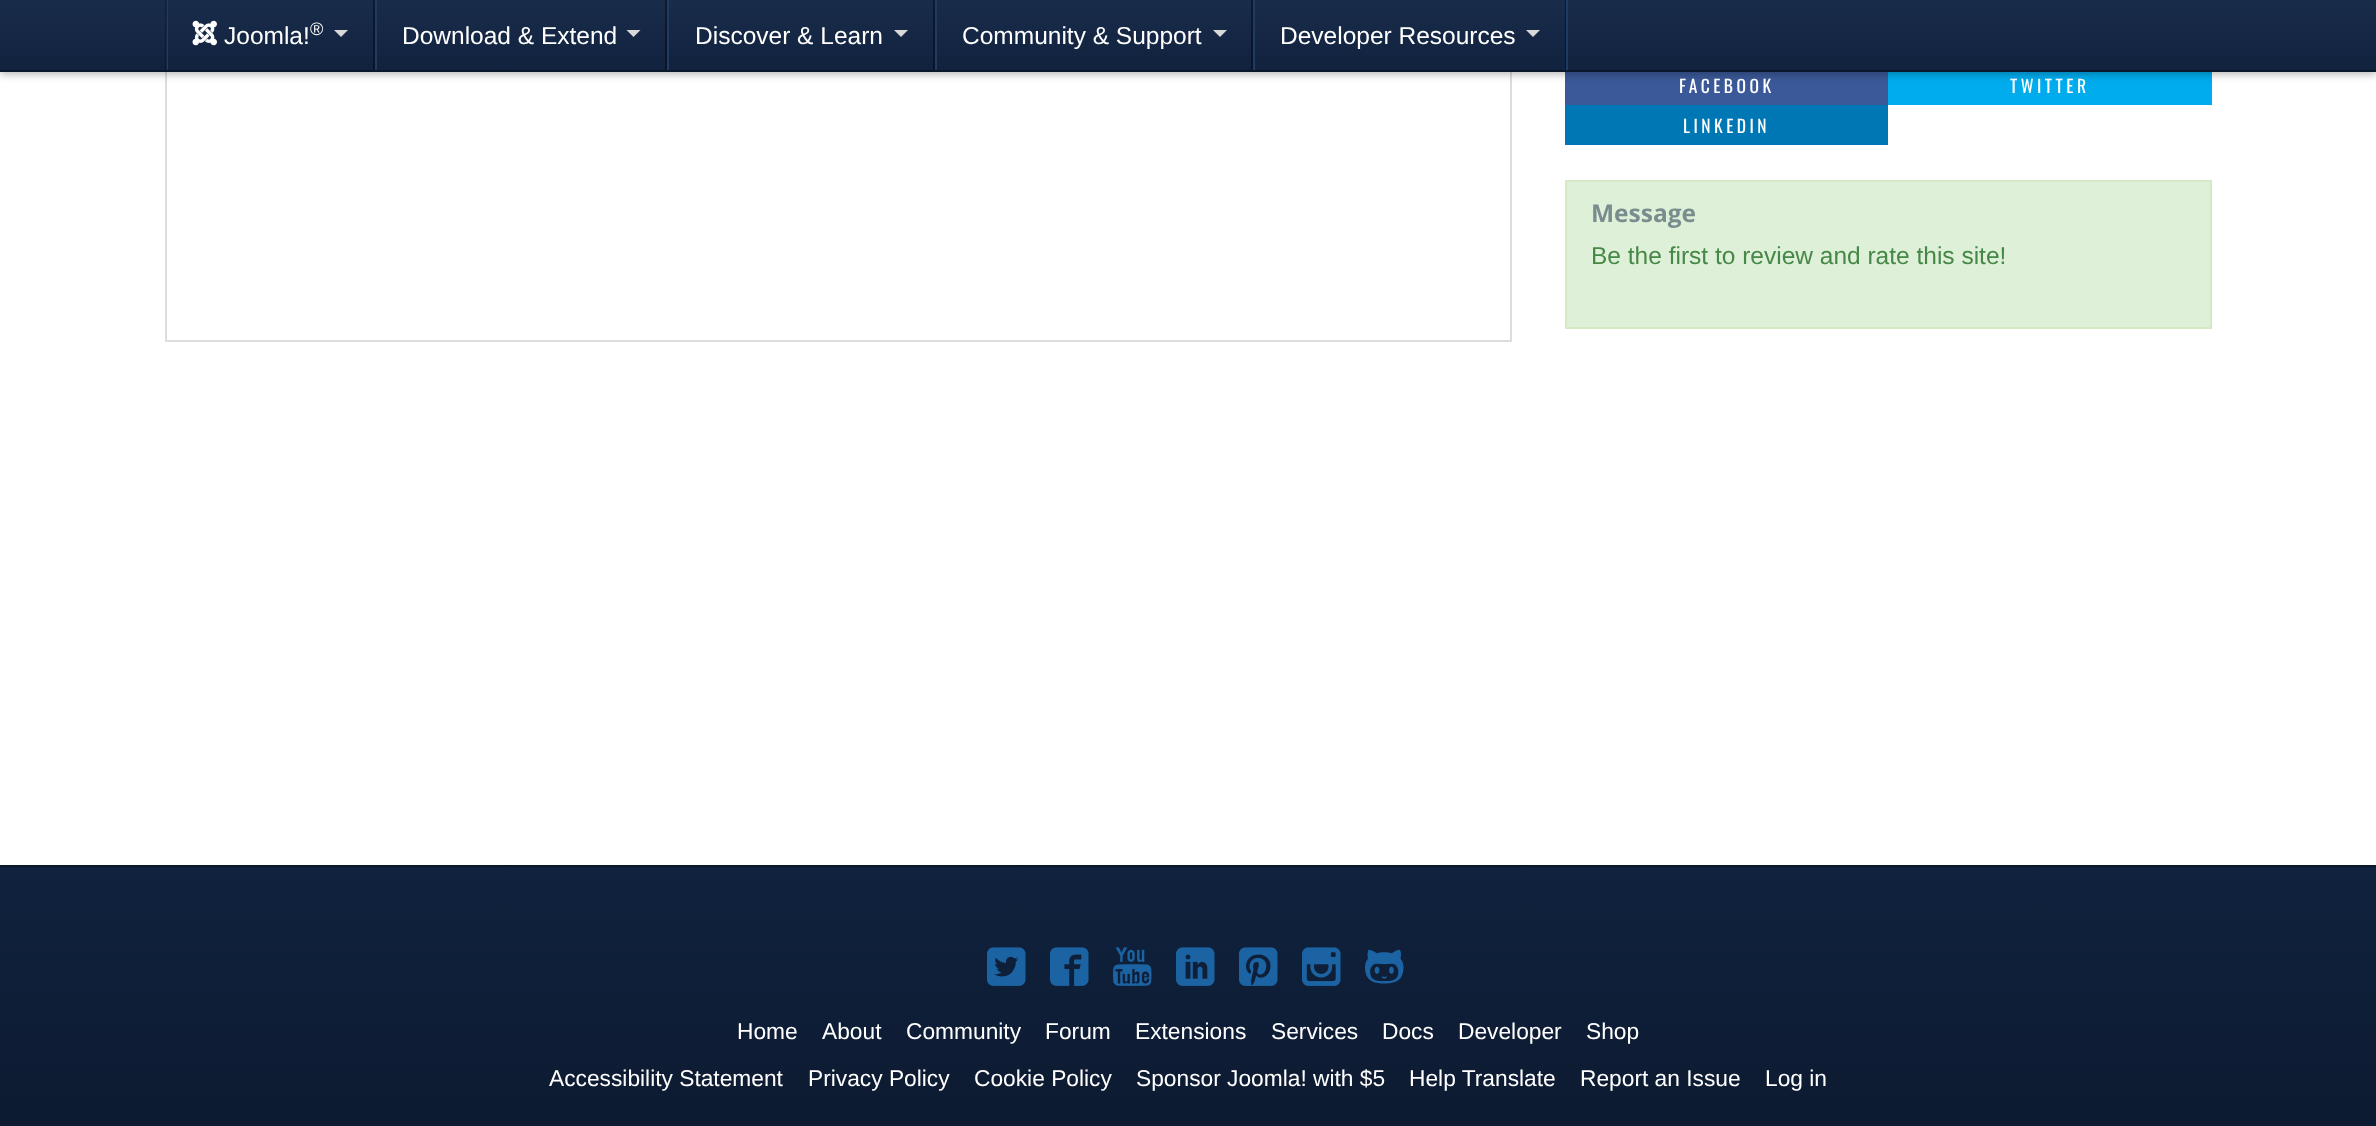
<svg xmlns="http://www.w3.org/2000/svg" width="2376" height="1126">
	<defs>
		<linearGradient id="g1" gradientUnits="userSpaceOnUse" x1="1188" y1="0" x2="1188" y2="70"><stop offset="0" stop-color="#192C4A" /><stop offset="1" stop-color="#10223E" /></linearGradient>
		<linearGradient id="g2" gradientUnits="userSpaceOnUse" x1="1188" y1="0" x2="1188" y2="70"><stop offset="0" stop-color="#0F1A2C" /><stop offset="1" stop-color="#0A1425" /></linearGradient>
		<linearGradient id="g3" gradientUnits="userSpaceOnUse" x1="1188" y1="0" x2="1188" y2="70"><stop offset="0" stop-color="#121F34" /><stop offset="1" stop-color="#0B182B" /></linearGradient>
		<linearGradient id="g4" gradientUnits="userSpaceOnUse" x1="1188" y1="866" x2="1188" y2="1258"><stop offset="0" stop-color="#10223E" /><stop offset="1" stop-color="#0B172A" /></linearGradient>
	</defs>
	<rect width="100%" height="100%" fill="#FFFFFF" />
	<rect x="1510" y="72" width="2" height="269" fill="#DDDDDD" />
	<rect x="165" y="340" width="1347" height="2" fill="#DDDDDD" />
	<rect x="165" y="72" width="2" height="269" fill="#DDDDDD" />
	<rect x="1565" y="72" width="323" height="33" fill="#3B5998" />
	<rect x="1888" y="72" width="324" height="33" fill="#00ACEE" />
	<rect x="0" y="2" width="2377" height="72" fill="#000000" fill-opacity="0.3" filter="blur(4.5px)" />
	<rect x="0" y="0" width="2376" height="70" fill="url(#g1)" />
	<rect x="1251" y="0" width="2" height="70" fill="url(#g2)" />
	<rect x="933" y="0" width="2" height="70" fill="url(#g2)" />
	<rect x="665" y="0" width="2" height="70" fill="url(#g2)" />
	<rect x="165" y="0" width="1" height="70" fill="url(#g3)" />
	<rect x="373" y="0" width="2" height="70" fill="url(#g2)" />
	<rect x="0" y="70" width="2376" height="2" fill="#0B172A" />
	<rect x="167" y="0" width="1" height="70" fill="#1E3B63" />
	<rect x="166" y="0" width="1" height="70" fill="#152945" />
	<rect x="375" y="0" width="2" height="70" fill="#1E3B63" />
	<image x="192" y="20" width="25" height="26" href="assets/img1.png" />
	<text x="224" y="44" font-family="Liberation Sans" font-size="24.5" fill="#FFFFFF">Joomla!</text>
	<text x="310" y="35" font-family="Liberation Sans" font-size="18" fill="#FFFFFF">®</text>
	<path d="M334 30H348L341 37Z" fill="#D9D9D9" />
	<rect x="667" y="0" width="2" height="70" fill="#1E3B63" />
	<text x="402" y="44" font-family="Liberation Sans" font-size="24.5" fill="#FFFFFF">Download &amp; Extend</text>
	<path d="M626.5 30H640.5L633.5 37Z" fill="#D9D9D9" />
	<rect x="935" y="0" width="2" height="70" fill="#1E3B63" />
	<text x="695" y="44" font-family="Liberation Sans" font-size="24.5" fill="#FFFFFF">Discover &amp; Learn</text>
	<path d="M894 30H908L901 37Z" fill="#D9D9D9" />
	<rect x="1253" y="0" width="2" height="70" fill="#1E3B63" />
	<text x="962" y="44" font-family="Liberation Sans" font-size="24.5" fill="#FFFFFF">Community &amp; Support</text>
	<path d="M1213 30H1227L1220 37Z" fill="#D9D9D9" />
	<rect x="1565" y="0" width="1" height="70" fill="#000000" fill-opacity="0.4" />
	<rect x="1566" y="0" width="2" height="70" fill="#1E3B63" />
	<text x="1280" y="44" font-family="Liberation Sans" font-size="24.5" fill="#FFFFFF">Developer Resources</text>
	<path d="M1526 30H1540L1533 37Z" fill="#D9D9D9" />
	<g font-family="Oswald" font-size="17.5" letter-spacing="3.5" fill="#FFFFFF">
		<text x="1679" y="93">FACEBOOK</text>
		<text x="2010" y="93">TWITTER</text>
	</g>
	<rect x="1565" y="105" width="323" height="40" fill="#0077B5" />
	<text x="1683" y="133" font-family="Oswald" font-size="17.5" letter-spacing="3.5" fill="#FFFFFF">LINKEDIN</text>
	<rect x="1566" y="181" width="645" height="147" fill="#DFF0D8" stroke="#D6E9C6" stroke-width="2" />
	<text x="1591" y="222" font-family="Open Sans" font-size="24.5" font-weight="700" fill="#7A8D8E">Message</text>
	<text x="1591" y="264" font-family="Liberation Sans" font-size="24.5" fill="#468847">Be the first to review and rate this site!</text>
	<rect x="0" y="867" width="2376" height="259" fill="url(#g4)" />
	<rect x="0" y="865" width="2376" height="2" fill="#0B172A" />
	<image x="987" y="947" width="39" height="39" href="assets/img2.png" />
	<image x="1050" y="947" width="39" height="39" href="assets/img3.png" />
	<image x="1113" y="947" width="39" height="39" href="assets/img4.png" />
	<image x="1176" y="947" width="39" height="39" href="assets/img5.png" />
	<image x="1239" y="947" width="39" height="39" href="assets/img6.png" />
	<image x="1302" y="947" width="39" height="39" href="assets/img7.png" />
	<image x="1365" y="949" width="39" height="35" href="assets/img8.png" />
	<g font-family="Liberation Sans" font-size="22.75" fill="#FFFFFF">
		<text x="737" y="1039">Home</text>
		<text x="822" y="1039">About</text>
		<text x="906" y="1039">Community</text>
		<text x="1045" y="1039">Forum</text>
		<text x="1135" y="1039">Extensions</text>
		<text x="1271" y="1039">Services</text>
		<text x="1382" y="1039">Docs</text>
		<text x="1458" y="1039">Developer</text>
		<text x="1586" y="1039">Shop</text>
		<text x="549" y="1086">Accessibility Statement</text>
		<text x="808" y="1086">Privacy Policy</text>
		<text x="974" y="1086">Cookie Policy</text>
		<text x="1136" y="1086">Sponsor Joomla! with $5</text>
		<text x="1409" y="1086">Help Translate</text>
		<text x="1580" y="1086">Report an Issue</text>
		<text x="1765" y="1086">Log in</text>
	</g>
</svg>
